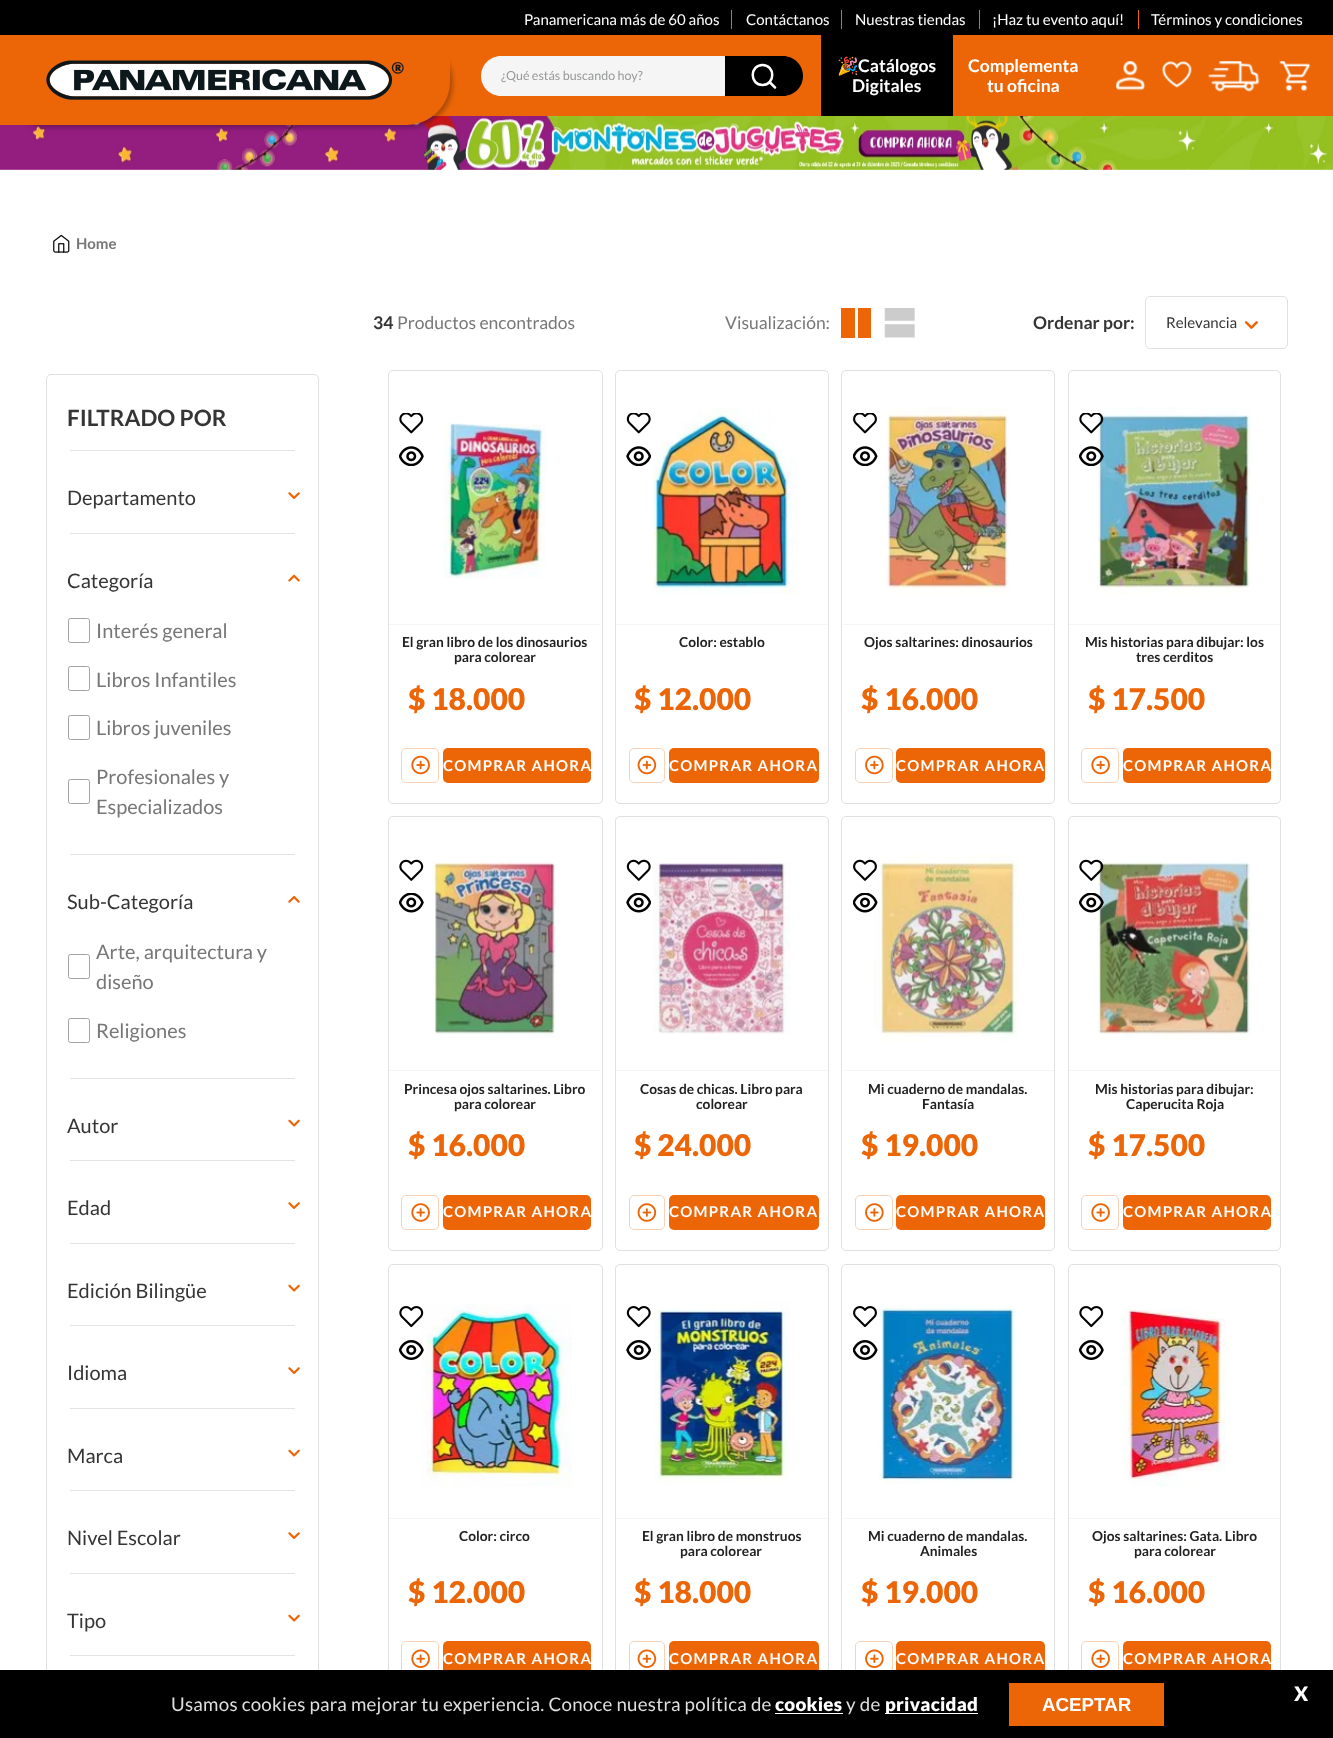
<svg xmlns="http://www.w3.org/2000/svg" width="1333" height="1738">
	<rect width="100%" height="100%" fill="#FFFFFF" />
	<rect x="0" y="0" width="1333" height="35" fill="#000000" />
	<text x="524" y="25" font-family="Lato" font-size="15" fill="#FFFFFF">Panamericana más de 60 años</text>
	<rect x="731" y="10" width="1" height="19" fill="#EC6608" />
	<text x="746" y="25" font-family="Lato" font-size="15" fill="#FFFFFF">Contáctanos</text>
	<rect x="841" y="10" width="1" height="19" fill="#EC6608" />
	<text x="855" y="25" font-family="Lato" font-size="15" fill="#FFFFFF">Nuestras tiendas</text>
	<rect x="979" y="10" width="1" height="19" fill="#EC6608" />
	<text x="992" y="25" font-family="Lato" font-size="15" fill="#FFFFFF">¡Haz tu evento aquí!</text>
	<rect x="1138" y="10" width="1" height="19" fill="#EC6608" />
	<text x="1151" y="25" font-family="Lato" font-size="15" fill="#FFFFFF">Términos y condiciones</text>
	<rect x="419" y="35" width="914" height="81" fill="#EC6608" />
	<image x="0" y="169" width="1" height="1" href="assets/img7.png" />
	<image x="0" y="116" width="1333" height="54" href="assets/img6.png" />
	<rect x="3" y="38" width="450" height="90" rx="44" fill="#000000" fill-opacity="0.25" filter="blur(2px)" />
	<path d="M0 35H419C436 35 450 49 450 66V81C450 105.5 430.5 125 406 125H0Z" fill="#EC6608" />
	<image x="46" y="60" width="358" height="40" href="assets/img1.png" />
	<path d="M501 56H724C724.5 56 725 56.5 725 57V95C725 95.5 724.5 96 724 96H501C490 96 481 87 481 76C481 65 490 56 501 56Z" fill="#F5F5F5" />
	<text x="501" y="80" font-family="Lato" font-size="12.5" fill="#979899">¿Qué estás buscando hoy?</text>
	<path d="M725 56H783C794 56 803 65 803 76C803 87 794 96 783 96H725Z" fill="#000000" />
	<path d="M762.5 85C775.5 85 775.5 65 762.5 65C749.5 65 749.5 85 762.5 85ZM775 87.5L769.5 82" fill="none" stroke="#FFFFFF" stroke-width="2.5" stroke-linecap="round" stroke-linejoin="round" />
	<rect x="821" y="35" width="132" height="81" fill="#000000" />
	<text x="837" y="72" font-family="Noto Color Emoji" font-size="17.5" font-weight="700" fill="#FFFFFF">🎉</text>
	<g font-family="Lato" font-size="17.5" font-weight="700" fill="#FFFFFF">
		<text x="858" y="72">Catálogos</text>
		<text x="852" y="92">Digitales</text>
		<text x="968" y="72">Complementa</text>
		<text x="987" y="92">tu oficina</text>
	</g>
	<image x="1116" y="61" width="30" height="30" href="assets/img2.png" />
	<image x="1162" y="61" width="30" height="27" href="assets/img3.png" />
	<image x="1208" y="61" width="52" height="31" href="assets/img4.png" />
	<image x="1279" y="61" width="32" height="31" href="assets/img5.png" />
	<image x="53" y="234" width="17" height="19" href="assets/img8.png" />
	<text x="76" y="249" font-family="Lato" font-size="15" font-weight="700" fill="#777777">Home</text>
	<text x="373" y="329" font-family="Lato" font-size="17.5" font-weight="700" fill="#353535">34</text>
	<g font-family="Lato" font-size="17.5" fill="#777777">
		<text x="397" y="329">Productos encontrados</text>
		<text x="725" y="329">Visualización:</text>
	</g>
	<rect x="841" y="308" width="14" height="30" fill="#EC6608" />
	<rect x="858" y="308" width="13" height="30" fill="#EC6608" />
	<image x="884" y="308" width="31" height="30" href="assets/img9.png" />
	<text x="1033" y="329" font-family="Lato" font-size="17.5" font-weight="700" fill="#353535">Ordenar por:</text>
	<rect x="1145.5" y="296.5" width="142" height="52" rx="4.5" fill="none" stroke="#E0E0E0" />
	<text x="1166" y="328" font-family="Lato" font-size="15" fill="#353535">Relevancia</text>
	<image x="1244" y="321" width="14" height="8" href="assets/img10.png" />
	<rect x="46.5" y="374.5" width="272" height="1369" rx="4.5" fill="none" stroke="#E0E0E0" />
	<rect x="70" y="450" width="225" height="1" fill="#E3E4E6" />
	<text x="67" y="426" font-family="Lato" font-size="22.5" font-weight="700" fill="#353535">FILTRADO POR</text>
	<rect x="70" y="533" width="225" height="1" fill="#E3E4E6" />
	<text x="67" y="505" font-family="Lato" font-size="20" fill="#353535">Departamento</text>
	<image x="288" y="492" width="12" height="7" href="assets/img11.png" />
	<rect x="70" y="854" width="225" height="1" fill="#E3E4E6" />
	<text x="67" y="588" font-family="Lato" font-size="20" fill="#353535">Categoría</text>
	<image x="288" y="574" width="12" height="8" href="assets/img12.png" />
	<rect x="68.5" y="618.5" width="21" height="24" rx="2" fill="none" stroke="#A3A3A3" />
	<text x="96" y="638" font-family="Lato" font-size="20" fill="#777777">Interés general</text>
	<rect x="68.5" y="666.5" width="21" height="24" rx="2" fill="none" stroke="#A3A3A3" />
	<text x="96" y="687" font-family="Lato" font-size="20" fill="#777777">Libros Infantiles</text>
	<rect x="68.5" y="715.5" width="21" height="24" rx="2" fill="none" stroke="#A3A3A3" />
	<text x="96" y="735" font-family="Lato" font-size="20" fill="#777777">Libros juveniles</text>
	<rect x="68.5" y="779.5" width="21" height="24" rx="2" fill="none" stroke="#A3A3A3" />
	<g font-family="Lato" font-size="20" fill="#777777">
		<text x="96" y="784">Profesionales y</text>
		<text x="96" y="814">Especializados</text>
	</g>
	<rect x="70" y="1078" width="225" height="1" fill="#E3E4E6" />
	<text x="67" y="909" font-family="Lato" font-size="20" fill="#353535">Sub-Categoría</text>
	<image x="288" y="896" width="12" height="7" href="assets/img13.png" />
	<rect x="68.5" y="954.5" width="21" height="24" rx="2" fill="none" stroke="#A3A3A3" />
	<g font-family="Lato" font-size="20" fill="#777777">
		<text x="96" y="959">Arte, arquitectura y</text>
		<text x="96" y="989">diseño</text>
	</g>
	<rect x="68.5" y="1018.5" width="21" height="24" rx="2" fill="none" stroke="#A3A3A3" />
	<text x="96" y="1038" font-family="Lato" font-size="20" fill="#777777">Religiones</text>
	<rect x="70" y="1160" width="225" height="1" fill="#E3E4E6" />
	<text x="67" y="1133" font-family="Lato" font-size="20" fill="#353535">Autor</text>
	<image x="288" y="1119" width="12" height="8" href="assets/img14.png" />
	<rect x="70" y="1243" width="225" height="1" fill="#E3E4E6" />
	<text x="67" y="1215" font-family="Lato" font-size="20" fill="#353535">Edad</text>
	<image x="288" y="1202" width="12" height="7" href="assets/img11.png" />
	<rect x="70" y="1325" width="225" height="1" fill="#E3E4E6" />
	<text x="67" y="1298" font-family="Lato" font-size="20" fill="#353535">Edición Bilingüe</text>
	<image x="288" y="1284" width="12" height="8" href="assets/img14.png" />
	<rect x="70" y="1408" width="225" height="1" fill="#E3E4E6" />
	<text x="67" y="1380" font-family="Lato" font-size="20" fill="#353535">Idioma</text>
	<image x="288" y="1367" width="12" height="7" href="assets/img11.png" />
	<rect x="70" y="1490" width="225" height="1" fill="#E3E4E6" />
	<text x="67" y="1463" font-family="Lato" font-size="20" fill="#353535">Marca</text>
	<image x="288" y="1449" width="12" height="8" href="assets/img14.png" />
	<rect x="70" y="1573" width="225" height="1" fill="#E3E4E6" />
	<text x="67" y="1545" font-family="Lato" font-size="20" fill="#353535">Nivel Escolar</text>
	<image x="288" y="1532" width="12" height="7" href="assets/img11.png" />
	<rect x="70" y="1655" width="225" height="1" fill="#E3E4E6" />
	<text x="67" y="1628" font-family="Lato" font-size="20" fill="#353535">Tipo</text>
	<image x="288" y="1614" width="12" height="8" href="assets/img14.png" />
	<rect x="388.5" y="370.5" width="214" height="433" rx="4.5" fill="none" stroke="#E0E0E0" />
	<image x="399" y="413" width="25" height="21" href="assets/img15.png" />
	<image x="399" y="446" width="25" height="20" href="assets/img16.png" />
	<rect x="389" y="624" width="212" height="1" fill="#F5F5F5" />
	<image x="443" y="423" width="103" height="156" href="assets/img17.png" />
	<g font-family="Lato" font-size="13.75" font-weight="700" fill="#212121">
		<text x="402" y="647">El gran libro de los dinosaurios</text>
		<text x="454" y="662">para colorear</text>
	</g>
	<text x="408" y="710" font-family="Lato" font-size="30" font-weight="900" fill="#EC6608">$ 18.000</text>
	<rect x="401.5" y="748.5" width="37" height="34" rx="4.5" fill="none" stroke="#F9D1B5" />
	<image x="411" y="755" width="19" height="20" href="assets/img18.png" />
	<rect x="443" y="748" width="148" height="35" rx="5" fill="#EC6608" />
	<text x="443" y="771" font-family="Lato" font-size="15" font-weight="700" letter-spacing="1.25" fill="#FFFFFF">COMPRAR AHORA</text>
	<rect x="615.5" y="370.5" width="213" height="433" rx="4.5" fill="none" stroke="#E0E0E0" />
	<rect x="616" y="624" width="212" height="1" fill="#F5F5F5" />
	<image x="653" y="408" width="145" height="187" href="assets/img19.png" />
	<image x="626" y="413" width="25" height="21" href="assets/img20.png" />
	<image x="626" y="446" width="25" height="20" href="assets/img21.png" />
	<text x="679" y="647" font-family="Lato" font-size="13.75" font-weight="700" fill="#212121">Color: establo</text>
	<text x="634" y="710" font-family="Lato" font-size="30" font-weight="900" fill="#EC6608">$ 12.000</text>
	<rect x="629.5" y="748.5" width="35" height="34" rx="4.5" fill="none" stroke="#F9D1B5" />
	<image x="637" y="755" width="20" height="20" href="assets/img22.png" />
	<rect x="669" y="748" width="150" height="35" rx="5" fill="#EC6608" />
	<text x="669" y="771" font-family="Lato" font-size="15" font-weight="700" letter-spacing="1.25" fill="#FFFFFF">COMPRAR AHORA</text>
	<rect x="841.5" y="370.5" width="213" height="433" rx="4.5" fill="none" stroke="#E0E0E0" />
	<rect x="843" y="624" width="211" height="1" fill="#F5F5F5" />
	<image x="885" y="407" width="125" height="188" href="assets/img23.png" />
	<image x="853" y="413" width="24" height="21" href="assets/img24.png" />
	<image x="853" y="446" width="25" height="20" href="assets/img25.png" />
	<text x="864" y="647" font-family="Lato" font-size="13.75" font-weight="700" fill="#212121">Ojos saltarines: dinosaurios</text>
	<text x="861" y="710" font-family="Lato" font-size="30" font-weight="900" fill="#EC6608">$ 16.000</text>
	<rect x="855.5" y="748.5" width="37" height="34" rx="4.5" fill="none" stroke="#F9D1B5" />
	<image x="865" y="755" width="19" height="20" href="assets/img26.png" />
	<rect x="896" y="748" width="149" height="35" rx="5" fill="#EC6608" />
	<text x="896" y="771" font-family="Lato" font-size="15" font-weight="700" letter-spacing="1.25" fill="#FFFFFF">COMPRAR AHORA</text>
	<rect x="1068.5" y="370.5" width="212" height="433" rx="4.5" fill="none" stroke="#E0E0E0" />
	<rect x="1069" y="624" width="211" height="1" fill="#F5F5F5" />
	<image x="1097" y="407" width="154" height="188" href="assets/img27.png" />
	<image x="1079" y="413" width="25" height="21" href="assets/img28.png" />
	<image x="1079" y="446" width="25" height="20" href="assets/img29.png" />
	<g font-family="Lato" font-size="13.75" font-weight="700" fill="#212121">
		<text x="1085" y="647">Mis historias para dibujar: los</text>
		<text x="1136" y="662">tres cerditos</text>
	</g>
	<text x="1088" y="710" font-family="Lato" font-size="30" font-weight="900" fill="#EC6608">$ 17.500</text>
	<rect x="1081.5" y="748.5" width="37" height="34" rx="4.5" fill="none" stroke="#F9D1B5" />
	<image x="1091" y="755" width="19" height="20" href="assets/img18.png" />
	<rect x="1123" y="748" width="148" height="35" rx="5" fill="#EC6608" />
	<text x="1123" y="771" font-family="Lato" font-size="15" font-weight="700" letter-spacing="1.25" fill="#FFFFFF">COMPRAR AHORA</text>
	<rect x="388.5" y="816.5" width="214" height="434" rx="4.5" fill="none" stroke="#E0E0E0" />
	<image x="399" y="859" width="25" height="22" href="assets/img30.png" />
	<image x="399" y="893" width="25" height="20" href="assets/img31.png" />
	<rect x="389" y="1070" width="212" height="1" fill="#F5F5F5" />
	<image x="431" y="861" width="125" height="177" href="assets/img32.png" />
	<g font-family="Lato" font-size="13.75" font-weight="700" fill="#212121">
		<text x="404" y="1094">Princesa ojos saltarines. Libro</text>
		<text x="454" y="1109">para colorear</text>
	</g>
	<text x="408" y="1156" font-family="Lato" font-size="30" font-weight="900" fill="#EC6608">$ 16.000</text>
	<rect x="401.5" y="1195.5" width="37" height="34" rx="4.5" fill="none" stroke="#F9D1B5" />
	<image x="411" y="1203" width="19" height="19" href="assets/img33.png" />
	<rect x="443" y="1195" width="148" height="35" rx="5" fill="#EC6608" />
	<text x="443" y="1217" font-family="Lato" font-size="15" font-weight="700" letter-spacing="1.25" fill="#FFFFFF">COMPRAR AHORA</text>
	<rect x="615.5" y="816.5" width="213" height="434" rx="4.5" fill="none" stroke="#E0E0E0" />
	<image x="626" y="859" width="25" height="22" href="assets/img34.png" />
	<image x="626" y="893" width="25" height="20" href="assets/img35.png" />
	<rect x="616" y="1070" width="212" height="1" fill="#F5F5F5" />
	<image x="653" y="863" width="138" height="171" href="assets/img36.png" />
	<g font-family="Lato" font-size="13.75" font-weight="700" fill="#212121">
		<text x="640" y="1094">Cosas de chicas. Libro para</text>
		<text x="696" y="1109">colorear</text>
	</g>
	<text x="634" y="1156" font-family="Lato" font-size="30" font-weight="900" fill="#EC6608">$ 24.000</text>
	<rect x="629.5" y="1195.5" width="35" height="34" rx="4.5" fill="none" stroke="#F9D1B5" />
	<image x="637" y="1203" width="20" height="19" href="assets/img37.png" />
	<rect x="669" y="1195" width="150" height="35" rx="5" fill="#EC6608" />
	<text x="669" y="1217" font-family="Lato" font-size="15" font-weight="700" letter-spacing="1.25" fill="#FFFFFF">COMPRAR AHORA</text>
	<rect x="841.5" y="816.5" width="213" height="434" rx="4.5" fill="none" stroke="#E0E0E0" />
	<rect x="843" y="1070" width="211" height="1" fill="#F5F5F5" />
	<image x="873" y="855" width="146" height="187" href="assets/img38.png" />
	<image x="853" y="859" width="24" height="22" href="assets/img39.png" />
	<image x="853" y="893" width="25" height="20" href="assets/img40.png" />
	<g font-family="Lato" font-size="13.75" font-weight="700" fill="#212121">
		<text x="868" y="1094">Mi cuaderno de mandalas.</text>
		<text x="922" y="1109">Fantasía</text>
	</g>
	<text x="861" y="1156" font-family="Lato" font-size="30" font-weight="900" fill="#EC6608">$ 19.000</text>
	<rect x="855.5" y="1195.5" width="37" height="34" rx="4.5" fill="none" stroke="#F9D1B5" />
	<image x="865" y="1203" width="19" height="19" href="assets/img41.png" />
	<rect x="896" y="1195" width="149" height="35" rx="5" fill="#EC6608" />
	<text x="896" y="1217" font-family="Lato" font-size="15" font-weight="700" letter-spacing="1.25" fill="#FFFFFF">COMPRAR AHORA</text>
	<rect x="1068.5" y="816.5" width="212" height="434" rx="4.5" fill="none" stroke="#E0E0E0" />
	<image x="1097" y="861" width="154" height="180" href="assets/img44.png" />
	<image x="1079" y="859" width="25" height="22" href="assets/img42.png" />
	<image x="1079" y="893" width="25" height="20" href="assets/img43.png" />
	<rect x="1069" y="1070" width="211" height="1" fill="#F5F5F5" />
	<g font-family="Lato" font-size="13.75" font-weight="700" fill="#212121">
		<text x="1095" y="1094">Mis historias para dibujar:</text>
		<text x="1126" y="1109">Caperucita Roja</text>
	</g>
	<text x="1088" y="1156" font-family="Lato" font-size="30" font-weight="900" fill="#EC6608">$ 17.500</text>
	<rect x="1081.5" y="1195.5" width="37" height="34" rx="4.5" fill="none" stroke="#F9D1B5" />
	<image x="1091" y="1203" width="19" height="19" href="assets/img33.png" />
	<rect x="1123" y="1195" width="148" height="35" rx="5" fill="#EC6608" />
	<text x="1123" y="1217" font-family="Lato" font-size="15" font-weight="700" letter-spacing="1.25" fill="#FFFFFF">COMPRAR AHORA</text>
	<rect x="388.5" y="1264.5" width="214" height="433" rx="4.5" fill="none" stroke="#E0E0E0" />
	<rect x="389" y="1518" width="212" height="1" fill="#F5F5F5" />
	<image x="422" y="1304" width="150" height="183" href="assets/img45.png" />
	<image x="399" y="1306" width="25" height="22" href="assets/img46.png" />
	<image x="399" y="1340" width="25" height="20" href="assets/img47.png" />
	<text x="459" y="1541" font-family="Lato" font-size="13.75" font-weight="700" fill="#212121">Color: circo</text>
	<text x="408" y="1603" font-family="Lato" font-size="30" font-weight="900" fill="#EC6608">$ 12.000</text>
	<rect x="401.5" y="1641.5" width="37" height="34" rx="4.5" fill="none" stroke="#F9D1B5" />
	<image x="411" y="1649" width="19" height="19" href="assets/img48.png" />
	<rect x="443" y="1641" width="148" height="35" rx="5" fill="#EC6608" />
	<text x="443" y="1664" font-family="Lato" font-size="15" font-weight="700" letter-spacing="1.25" fill="#FFFFFF">COMPRAR AHORA</text>
	<rect x="615.5" y="1264.5" width="213" height="433" rx="4.5" fill="none" stroke="#E0E0E0" />
	<rect x="616" y="1518" width="212" height="1" fill="#F5F5F5" />
	<image x="654" y="1302" width="136" height="182" href="assets/img49.png" />
	<image x="626" y="1306" width="25" height="22" href="assets/img50.png" />
	<image x="626" y="1340" width="25" height="20" href="assets/img51.png" />
	<g font-family="Lato" font-size="13.75" font-weight="700" fill="#212121">
		<text x="642" y="1541">El gran libro de monstruos</text>
		<text x="680" y="1556">para colorear</text>
	</g>
	<text x="634" y="1603" font-family="Lato" font-size="30" font-weight="900" fill="#EC6608">$ 18.000</text>
	<rect x="629.5" y="1641.5" width="35" height="34" rx="4.5" fill="none" stroke="#F9D1B5" />
	<image x="637" y="1649" width="20" height="19" href="assets/img52.png" />
	<rect x="669" y="1641" width="150" height="35" rx="5" fill="#EC6608" />
	<text x="669" y="1664" font-family="Lato" font-size="15" font-weight="700" letter-spacing="1.25" fill="#FFFFFF">COMPRAR AHORA</text>
	<rect x="841.5" y="1264.5" width="213" height="433" rx="4.5" fill="none" stroke="#E0E0E0" />
	<rect x="843" y="1518" width="211" height="1" fill="#F5F5F5" />
	<image x="878" y="1305" width="138" height="179" href="assets/img53.png" />
	<image x="853" y="1306" width="24" height="22" href="assets/img54.png" />
	<image x="853" y="1340" width="25" height="20" href="assets/img55.png" />
	<g font-family="Lato" font-size="13.75" font-weight="700" fill="#212121">
		<text x="868" y="1541">Mi cuaderno de mandalas.</text>
		<text x="920" y="1556">Animales</text>
	</g>
	<text x="861" y="1603" font-family="Lato" font-size="30" font-weight="900" fill="#EC6608">$ 19.000</text>
	<rect x="855.5" y="1641.5" width="37" height="34" rx="4.5" fill="none" stroke="#F9D1B5" />
	<image x="865" y="1649" width="19" height="19" href="assets/img56.png" />
	<rect x="896" y="1641" width="149" height="35" rx="5" fill="#EC6608" />
	<text x="896" y="1664" font-family="Lato" font-size="15" font-weight="700" letter-spacing="1.25" fill="#FFFFFF">COMPRAR AHORA</text>
	<rect x="1068.5" y="1264.5" width="212" height="433" rx="4.5" fill="none" stroke="#E0E0E0" />
	<image x="1079" y="1306" width="25" height="22" href="assets/img57.png" />
	<image x="1079" y="1340" width="25" height="20" href="assets/img58.png" />
	<rect x="1069" y="1518" width="211" height="1" fill="#F5F5F5" />
	<image x="1122" y="1309" width="104" height="178" href="assets/img59.png" />
	<g font-family="Lato" font-size="13.75" font-weight="700" fill="#212121">
		<text x="1092" y="1541">Ojos saltarines: Gata. Libro</text>
		<text x="1134" y="1556">para colorear</text>
	</g>
	<text x="1088" y="1603" font-family="Lato" font-size="30" font-weight="900" fill="#EC6608">$ 16.000</text>
	<rect x="1081.5" y="1641.5" width="37" height="34" rx="4.5" fill="none" stroke="#F9D1B5" />
	<image x="1091" y="1649" width="19" height="19" href="assets/img48.png" />
	<rect x="1123" y="1641" width="148" height="35" rx="5" fill="#EC6608" />
	<text x="1123" y="1664" font-family="Lato" font-size="15" font-weight="700" letter-spacing="1.25" fill="#FFFFFF">COMPRAR AHORA</text>
	<rect x="0" y="1670" width="1333" height="68" fill="#000000" />
	<text x="1294" y="1701" font-family="Lato" font-size="20" font-weight="900" fill="#FFFFFF">X</text>
	<text x="171" y="1711" font-family="Lato" font-size="18.75" letter-spacing="0.25" fill="#DFDFDF">Usamos cookies para mejorar tu experiencia. Conoce nuestra política de</text>
	<text x="775" y="1711" font-family="Lato" font-size="18.75" font-weight="900" letter-spacing="0.25" fill="#FFFFFF">cookies</text>
	<rect x="775" y="1713" width="68" height="1" fill="#FFFFFF" />
	<text x="846" y="1711" font-family="Lato" font-size="18.75" letter-spacing="0.25" fill="#DFDFDF">y de</text>
	<rect x="885" y="1713" width="93" height="1" fill="#FFFFFF" />
	<text x="885" y="1711" font-family="Lato" font-size="18.75" font-weight="900" letter-spacing="0.25" fill="#FFFFFF">privacidad</text>
	<rect x="1009" y="1683" width="155" height="43" fill="#EC6608" />
	<text x="1042" y="1711" font-family="Liberation Sans" font-size="18.75" font-weight="700" fill="#FFFFFF">ACEPTAR</text>
</svg>
